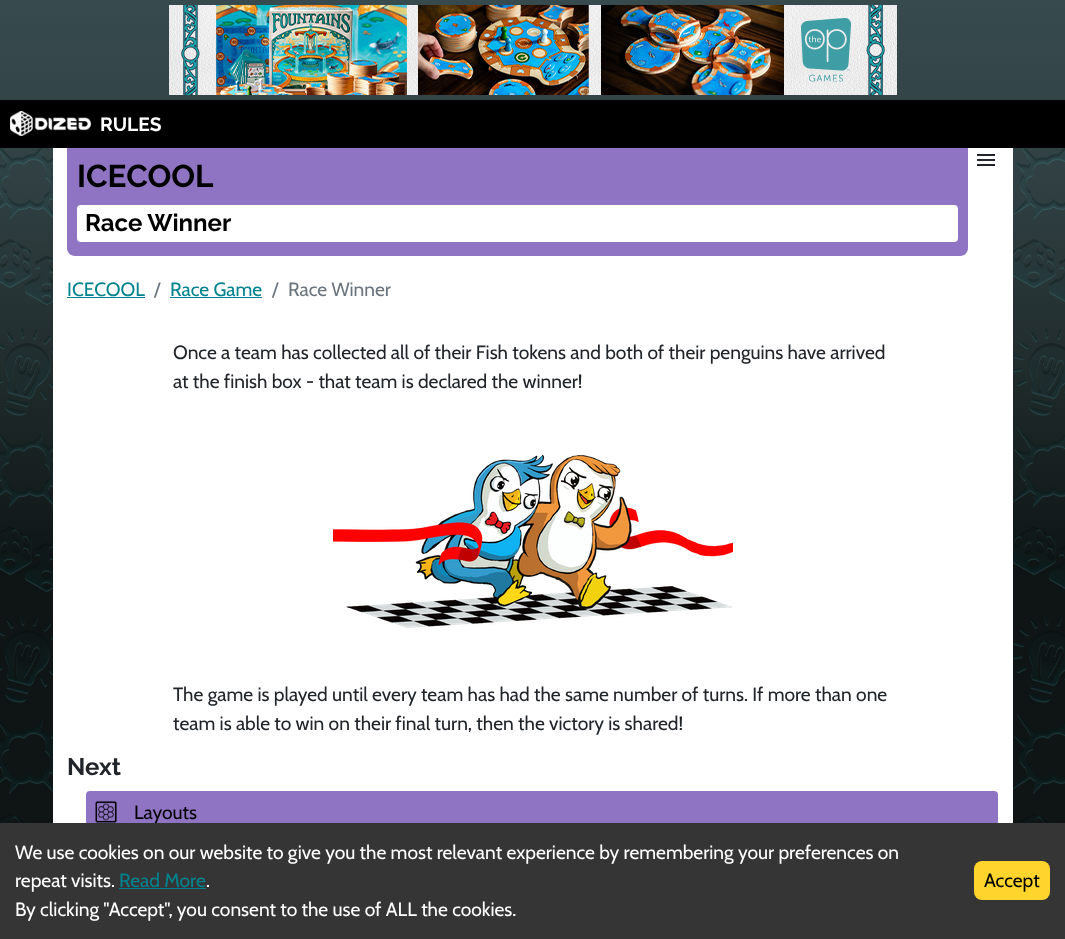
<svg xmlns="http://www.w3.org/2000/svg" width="1065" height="939">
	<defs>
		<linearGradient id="g1" gradientUnits="userSpaceOnUse" x1="532" y1="0" x2="533" y2="939"><stop offset="0" stop-color="#374A4E" /><stop offset="0.2" stop-color="#304042" /><stop offset="0.6" stop-color="#0F1515" /></linearGradient>
	</defs>
	<rect width="100%" height="100%" fill="#FFFFFF" />
	<rect x="0" y="0" width="1065" height="823" fill="url(#g1)" />
	<image x="169" y="5" width="728" height="90" href="assets/img1.png" />
	<rect x="0" y="100" width="1065" height="48" fill="#000000" />
	<image x="10" y="111" width="81" height="25" href="assets/img2.png" />
	<text x="100" y="131" font-family="Raleway" font-size="19.2" font-weight="700" fill="#FFFFFF">RULES</text>
	<image x="0" y="148" width="1065" height="675" href="assets/img3.png" />
	<rect x="53" y="148" width="960" height="675" fill="#FFFFFF" />
	<image x="977" y="154" width="18" height="12" href="assets/img4.png" />
	<path d="M67 148H968V248C968 252.5 964.5 256 960 256H75C70.5 256 67 252.5 67 248Z" fill="#9074C4" />
	<text x="77" y="187" font-family="Raleway" font-size="31.5" font-weight="700" fill="#000000">ICECOOL</text>
	<rect x="77" y="205" width="881" height="37" rx="4" fill="#FFFFFF" />
	<text x="85" y="231" font-family="Raleway" font-size="24" font-weight="700" fill="#000000">Race Winner</text>
	<text x="67" y="296" font-family="Cabin" font-size="19.2" fill="#00838F">ICECOOL</text>
	<rect x="67" y="297" width="78" height="1" fill="#00838F" />
	<text x="154" y="296" font-family="Cabin" font-size="19.2" fill="#6C757D">/</text>
	<text x="170" y="296" font-family="Cabin" font-size="19.2" fill="#00838F">Race Game</text>
	<rect x="170" y="297" width="92" height="1" fill="#00838F" />
	<g font-family="Cabin" font-size="19.2" fill="#6C757D">
		<text x="272" y="296">/</text>
		<text x="288" y="296">Race Winner</text>
	</g>
	<g font-family="Cabin" font-size="19.2" fill="#212529">
		<text x="173" y="359">Once a team has collected all of their Fish tokens and both of their penguins have arrived</text>
		<text x="173" y="388">at the finish box - that team is declared the winner!</text>
	</g>
	<image x="333" y="454" width="400" height="174" href="assets/img5.png" />
	<g font-family="Cabin" font-size="19.2" fill="#212529">
		<text x="173" y="701">The game is played until every team has had the same number of turns. If more than one</text>
		<text x="173" y="730">team is able to win on their final turn, then the victory is shared!</text>
	</g>
	<text x="67" y="775" font-family="Raleway" font-size="24" font-weight="700" fill="#212529">Next</text>
	<rect x="86" y="791" width="912" height="42" rx="4" fill="#9074C4" />
	<image x="95" y="801" width="22" height="22" href="assets/img6.png" />
	<text x="134" y="819" font-family="Cabin" font-size="19.2" fill="#000000">Layouts</text>
	<rect x="0" y="823" width="1065" height="116" fill="#353535" />
	<g font-family="Cabin" font-size="19.2" fill="#FFFFFF">
		<text x="15" y="859">We use cookies on our website to give you the most relevant experience by remembering your preferences on</text>
		<text x="15" y="887">repeat visits.</text>
	</g>
	<text x="119" y="887" font-family="Cabin" font-size="19.2" fill="#00838F">Read More</text>
	<rect x="119" y="888" width="87" height="1" fill="#00838F" />
	<g font-family="Cabin" font-size="19.2" fill="#FFFFFF">
		<text x="206" y="887">.</text>
		<text x="15" y="916">By clicking "Accept", you consent to the use of ALL the cookies.</text>
	</g>
	<rect x="974" y="861" width="76" height="39" rx="8" fill="#FFD42D" />
	<text x="984" y="887" font-family="Cabin" font-size="19.2" fill="#000000">Accept</text>
</svg>
